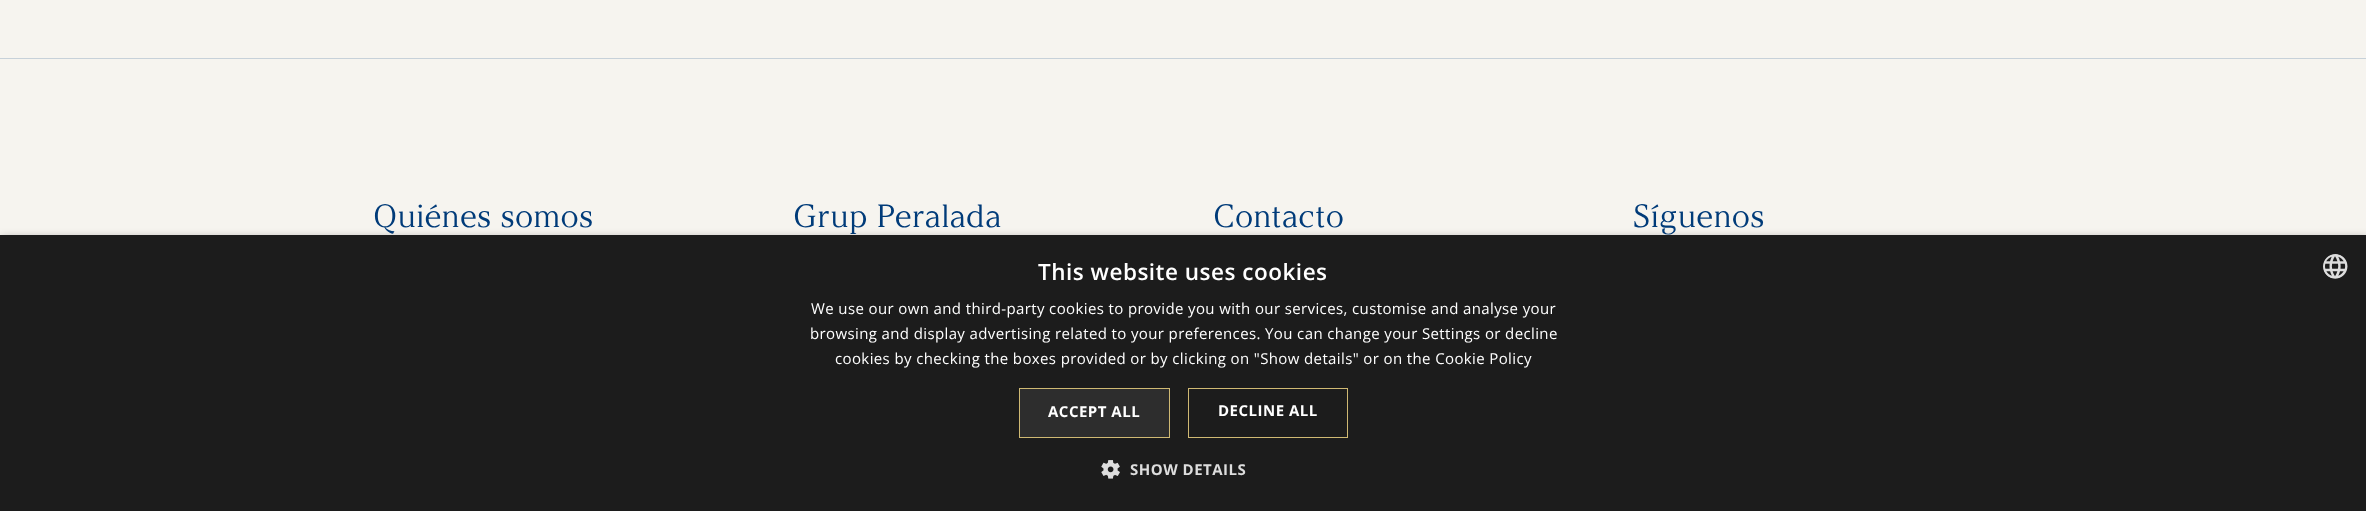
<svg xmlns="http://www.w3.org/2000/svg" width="2366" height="511">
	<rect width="100%" height="100%" fill="#F6F4EF" />
	<rect x="0" y="58" width="2366" height="1" fill="#C7D1D9" />
	<g font-family="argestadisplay" font-size="32" fill="#003B79">
		<text x="373" y="227">Quiénes somos</text>
		<text x="793" y="227">Grup Peralada</text>
		<text x="1213" y="227">Contacto</text>
		<text x="1633" y="227">Síguenos</text>
	</g>
	<rect x="1" y="238" width="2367" height="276" fill="#000000" fill-opacity="0.35" filter="blur(5px)" />
	<rect x="0" y="235" width="2366" height="276" fill="#1C1C1C" />
	<text x="1038" y="280" font-family="Open Sans" font-size="22.5" font-weight="600" letter-spacing="0.5" fill="#FFFFFF">This website uses cookies</text>
	<image x="2323" y="254" width="25" height="25" href="assets/img1.png" />
	<g font-family="Open Sans" font-size="15" letter-spacing="0.38" fill="#FFFFFF">
		<text x="811" y="314">We use our own and third-party cookies to provide you with our services, customise and analyse your</text>
		<text x="810" y="339">browsing and display advertising related to your preferences. You can change your Settings or decline</text>
		<text x="835" y="364">cookies by checking the boxes provided or by clicking on "Show details" or on the Cookie Policy</text>
	</g>
	<rect x="1019.5" y="388.5" width="150" height="49" fill="#2D2D2D" stroke="#CFB973" />
	<text x="1048" y="417" font-family="Open Sans" font-size="15" font-weight="700" letter-spacing="0.5" fill="#FFFFFF">ACCEPT ALL</text>
	<rect x="1188.5" y="388.5" width="159" height="49" fill="none" stroke="#CFB973" />
	<text x="1218" y="416" font-family="Open Sans" font-size="15" font-weight="700" letter-spacing="0.5" fill="#FFFFFF">DECLINE ALL</text>
	<image x="1101" y="460" width="19" height="19" href="assets/img2.png" />
	<text x="1130" y="475" font-family="Open Sans" font-size="15" font-weight="700" letter-spacing="0.5" fill="#DDDDDD">SHOW DETAILS</text>
</svg>
